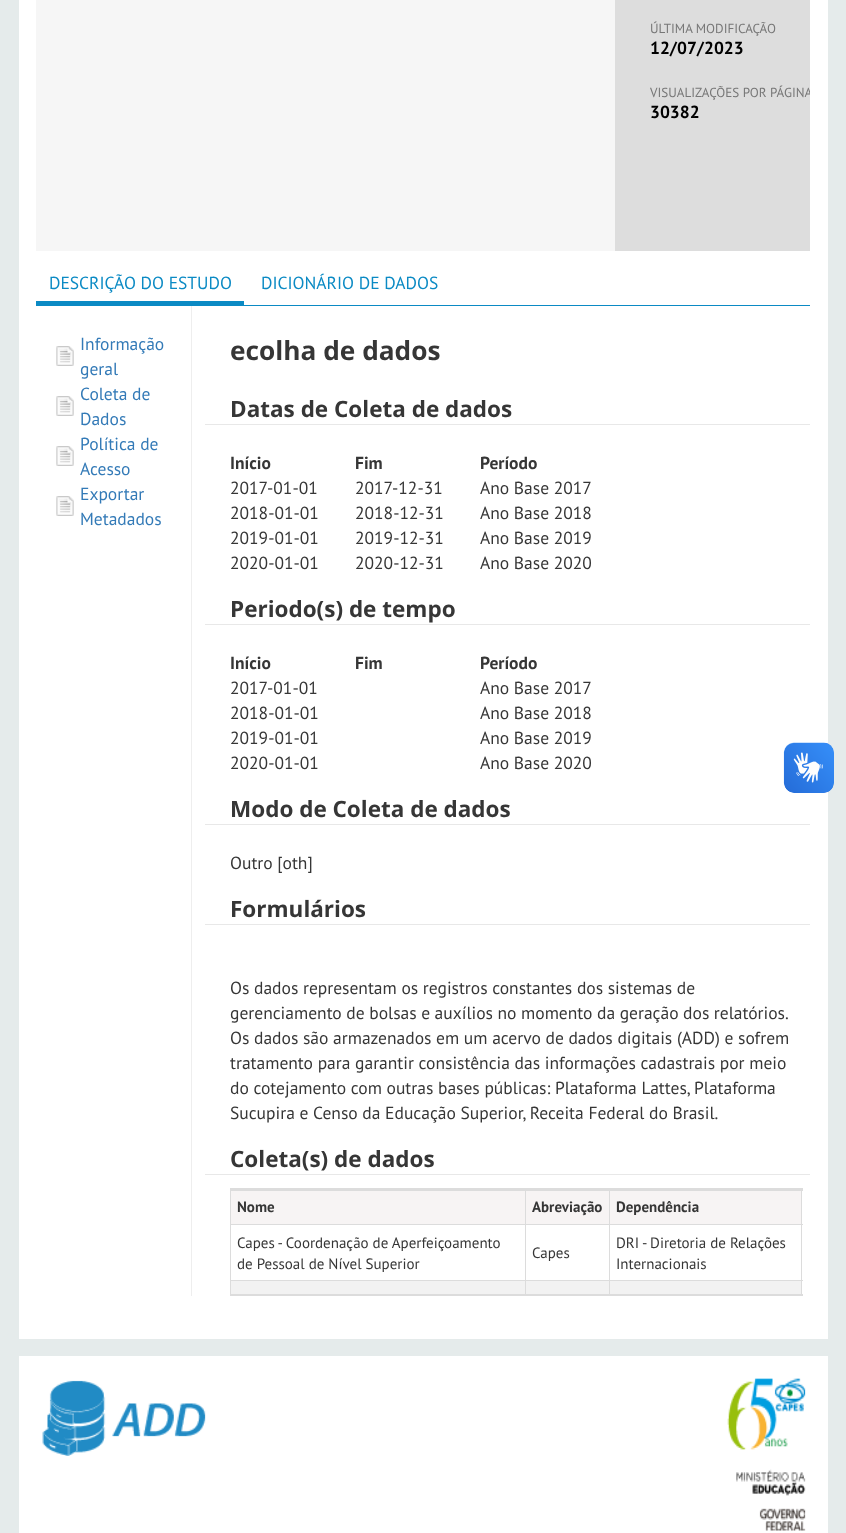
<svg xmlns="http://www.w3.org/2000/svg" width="846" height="1533">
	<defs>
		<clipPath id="clip1"><rect x="36" y="0" width="774" height="251" /></clipPath>
	</defs>
	<rect width="100%" height="100%" fill="#E5EBEB" />
	<rect x="19" y="0" width="809" height="1339" fill="#FFFFFF" />
	<rect x="36" y="0" width="579" height="251" fill="#F6F6F6" />
	<rect x="615" y="0" width="195" height="251" fill="#DDDDDD" />
	<text x="650" y="33" font-family="PT Sans" font-size="13.1" fill="#777777">ÚLTIMA MODIFICAÇÃO</text>
	<text x="650" y="54" font-family="PT Sans" font-size="17.5" font-weight="700" fill="#000000">12/07/2023</text>
	<g clip-path="url(#clip1)">
		<text x="650" y="97" font-family="PT Sans" font-size="13.1" fill="#777777">VISUALIZAÇÕES POR PÁGINA</text>
	</g>
	<text x="650" y="118" font-family="PT Sans" font-size="17.5" font-weight="700" fill="#000000">30382</text>
	<rect x="36" y="305" width="774" height="1" fill="#0B8AC4" />
	<rect x="36" y="301" width="208" height="4" fill="#0B8AC4" />
	<g font-family="PT Sans" font-size="17.5" fill="#0B8AC4">
		<text x="49" y="289">DESCRIÇÃO DO ESTUDO</text>
		<text x="261" y="289">DICIONÁRIO DE DADOS</text>
	</g>
	<image x="56" y="346" width="18" height="20" href="assets/img1.png" />
	<g font-family="PT Sans" font-size="17.5" fill="#337AB7">
		<text x="80" y="350">Informação</text>
		<text x="80" y="375">geral</text>
	</g>
	<image x="56" y="396" width="18" height="20" href="assets/img1.png" />
	<g font-family="PT Sans" font-size="17.5" fill="#337AB7">
		<text x="80" y="400">Coleta de</text>
		<text x="80" y="425">Dados</text>
	</g>
	<image x="56" y="446" width="18" height="20" href="assets/img1.png" />
	<g font-family="PT Sans" font-size="17.5" fill="#337AB7">
		<text x="80" y="450">Política de</text>
		<text x="80" y="475">Acesso</text>
	</g>
	<image x="56" y="496" width="18" height="20" href="assets/img1.png" />
	<g font-family="PT Sans" font-size="17.5" fill="#337AB7">
		<text x="80" y="500">Exportar</text>
		<text x="80" y="525">Metadados</text>
	</g>
	<rect x="191" y="306" width="1" height="990" fill="#EEEEEE" />
	<text x="230" y="360" font-family="Open Sans" font-size="26.25" font-weight="700" fill="#363636">ecolha de dados</text>
	<rect x="205" y="424" width="605" height="1" fill="#E8E8E8" />
	<text x="230" y="417" font-family="Open Sans" font-size="22.5" font-weight="700" fill="#363636">Datas de Coleta de dados</text>
	<g font-family="PT Sans" font-size="17.5" font-weight="700" fill="#363636">
		<text x="230" y="469">Início</text>
		<text x="355" y="469">Fim</text>
		<text x="480" y="469">Período</text>
	</g>
	<g font-family="PT Sans" font-size="17.5" fill="#363636">
		<text x="230" y="494">2017-01-01</text>
		<text x="355" y="494">2017-12-31</text>
		<text x="480" y="494">Ano Base 2017</text>
		<text x="230" y="519">2018-01-01</text>
		<text x="355" y="519">2018-12-31</text>
		<text x="480" y="519">Ano Base 2018</text>
		<text x="230" y="544">2019-01-01</text>
		<text x="355" y="544">2019-12-31</text>
		<text x="480" y="544">Ano Base 2019</text>
		<text x="230" y="569">2020-01-01</text>
		<text x="355" y="569">2020-12-31</text>
		<text x="480" y="569">Ano Base 2020</text>
	</g>
	<rect x="205" y="624" width="605" height="1" fill="#E8E8E8" />
	<text x="230" y="617" font-family="Open Sans" font-size="22.5" font-weight="700" fill="#363636">Periodo(s) de tempo</text>
	<g font-family="PT Sans" font-size="17.5" font-weight="700" fill="#363636">
		<text x="230" y="669">Início</text>
		<text x="355" y="669">Fim</text>
		<text x="480" y="669">Período</text>
	</g>
	<g font-family="PT Sans" font-size="17.5" fill="#363636">
		<text x="230" y="694">2017-01-01</text>
		<text x="480" y="694">Ano Base 2017</text>
		<text x="230" y="719">2018-01-01</text>
		<text x="480" y="719">Ano Base 2018</text>
		<text x="230" y="744">2019-01-01</text>
		<text x="480" y="744">Ano Base 2019</text>
		<text x="230" y="769">2020-01-01</text>
		<text x="480" y="769">Ano Base 2020</text>
	</g>
	<rect x="205" y="824" width="605" height="1" fill="#E8E8E8" />
	<text x="230" y="817" font-family="Open Sans" font-size="22.5" font-weight="700" fill="#363636">Modo de Coleta de dados</text>
	<text x="230" y="869" font-family="PT Sans" font-size="17.5" fill="#363636">Outro [oth]</text>
	<rect x="205" y="924" width="605" height="1" fill="#E8E8E8" />
	<text x="230" y="917" font-family="Open Sans" font-size="22.5" font-weight="700" fill="#363636">Formulários</text>
	<g font-family="PT Sans" font-size="17.5" fill="#363636">
		<text x="230" y="994">Os dados representam os registros constantes dos sistemas de</text>
		<text x="230" y="1019" word-spacing="-0.1">gerenciamento de bolsas e auxílios no momento da geração dos relatórios.</text>
		<text x="230" y="1044">Os dados são armazenados em um acervo de dados digitais (ADD) e sofrem</text>
		<text x="230" y="1069">tratamento para garantir consistência das informações cadastrais por meio</text>
		<text x="230" y="1094">do cotejamento com outras bases públicas: Plataforma Lattes, Plataforma</text>
		<text x="230" y="1119">Sucupira e Censo da Educação Superior, Receita Federal do Brasil.</text>
	</g>
	<rect x="205" y="1174" width="605" height="1" fill="#E8E8E8" />
	<text x="230" y="1167" font-family="Open Sans" font-size="22.5" font-weight="700" fill="#363636">Coleta(s) de dados</text>
	<rect x="609" y="1224" width="194" height="1" fill="#DCDCDC" />
	<rect x="609" y="1280" width="194" height="1" fill="#DCDCDC" />
	<rect x="609" y="1280" width="1" height="16" fill="#DCDCDC" />
	<rect x="525" y="1280" width="85" height="1" fill="#DCDCDC" />
	<rect x="609" y="1224" width="1" height="57" fill="#DCDCDC" />
	<rect x="525" y="1224" width="85" height="1" fill="#DCDCDC" />
	<rect x="525" y="1280" width="1" height="16" fill="#DCDCDC" />
	<rect x="230" y="1280" width="296" height="1" fill="#DCDCDC" />
	<rect x="525" y="1224" width="1" height="57" fill="#DCDCDC" />
	<rect x="230" y="1224" width="296" height="1" fill="#DCDCDC" />
	<rect x="525" y="1188" width="1" height="37" fill="#DCDCDC" />
	<rect x="609" y="1188" width="1" height="37" fill="#DCDCDC" />
	<rect x="230" y="1280" width="1" height="16" fill="#DCDCDC" />
	<rect x="230" y="1188" width="1" height="93" fill="#DCDCDC" />
	<rect x="801" y="1280" width="1" height="16" fill="#DCDCDC" />
	<rect x="801" y="1188" width="1" height="93" fill="#DCDCDC" />
	<rect x="230" y="1188" width="573" height="3" fill="#DCDCDC" />
	<rect x="230" y="1294" width="573" height="2" fill="#DCDCDC" />
	<rect x="231" y="1191" width="294" height="33" fill="#F7F4F4" />
	<text x="237" y="1212" font-family="PT Sans" font-size="15" font-weight="700" fill="#363636">Nome</text>
	<rect x="526" y="1191" width="83" height="33" fill="#F7F4F4" />
	<text x="532" y="1212" font-family="PT Sans" font-size="15" font-weight="700" fill="#363636">Abreviação</text>
	<rect x="610" y="1191" width="191" height="33" fill="#F7F4F4" />
	<text x="616" y="1212" font-family="PT Sans" font-size="15" font-weight="700" fill="#363636">Dependência</text>
	<g font-family="PT Sans" font-size="15" fill="#363636">
		<text x="237" y="1248">Capes - Coordenação de Aperfeiçoamento</text>
		<text x="237" y="1269">de Pessoal de Nível Superior</text>
		<text x="532" y="1258">Capes</text>
		<text x="616" y="1248">DRI - Diretoria de Relações</text>
		<text x="616" y="1269">Internacionais</text>
	</g>
	<rect x="231" y="1281" width="294" height="13" fill="#F2F2F2" />
	<rect x="526" y="1281" width="83" height="13" fill="#F2F2F2" />
	<rect x="610" y="1281" width="191" height="13" fill="#F2F2F2" />
	<rect x="19" y="1356" width="809" height="177" fill="#FFFFFF" />
	<image x="42" y="1380" width="164" height="76" href="assets/img2.png" />
	<image x="727" y="1378" width="79" height="153" href="assets/img3.png" />
	<image x="783" y="742" width="51" height="51" href="assets/img4.png" />
	<image x="784" y="743" width="50" height="50" href="assets/img5.png" />
</svg>
